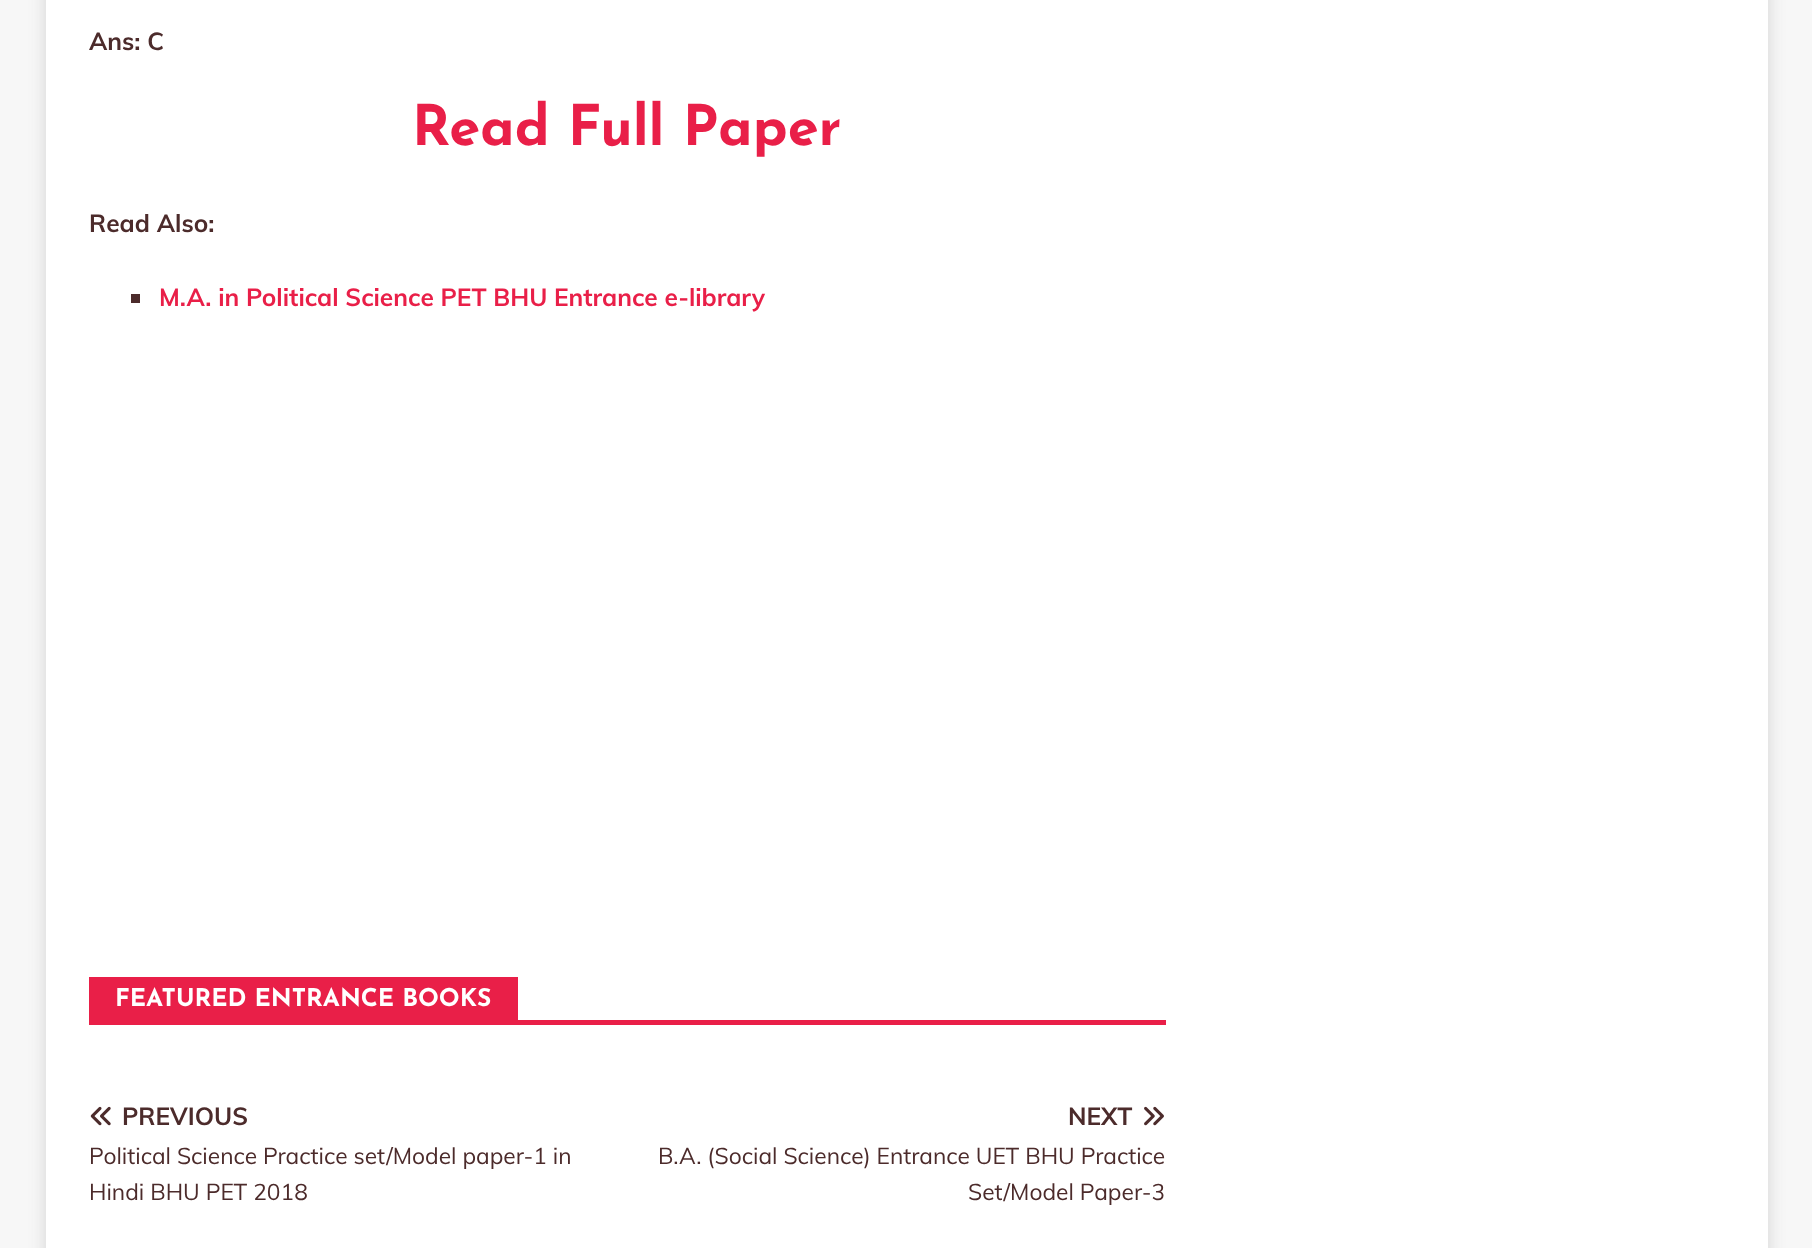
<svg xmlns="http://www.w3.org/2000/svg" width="1812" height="1248">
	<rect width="100%" height="100%" fill="#F7F7F7" />
	<rect x="46" y="-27" width="1722" height="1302" fill="#323232" fill-opacity="0.17" filter="blur(9px)" />
	<rect x="46" y="0" width="1722" height="1248" fill="#FFFFFF" />
	<text x="89" y="50" font-family="Muli" font-size="24.5" font-weight="700" fill="#4C2B2B">Ans: C</text>
	<text x="412" y="145" font-family="Josefin Sans" font-size="56" font-weight="700" fill="#E91F48">Read Full Paper</text>
	<text x="89" y="232" font-family="Muli" font-size="24.5" font-weight="700" fill="#4C2B2B">Read Also:</text>
	<rect x="131" y="294" width="9" height="9" fill="#4C2B2B" />
	<text x="159" y="306" font-family="Muli" font-size="24.5" font-weight="700" fill="#E91F48">M.A. in Political Science PET BHU Entrance e-library</text>
	<rect x="89" y="1020" width="1077" height="5" fill="#E91F48" />
	<rect x="89" y="977" width="429" height="43" fill="#E91F48" />
	<text x="115" y="1006" font-family="Josefin Sans" font-size="24.5" font-weight="700" fill="#FFFFFF">FEATURED ENTRANCE BOOKS</text>
	<image x="90" y="1106" width="21" height="20" href="assets/img1.png" />
	<text x="122" y="1125" font-family="Muli" font-size="24.5" font-weight="700" fill="#4C2B2B">PREVIOUS</text>
	<g font-family="Muli" font-size="22.75" fill="#4C2B2B">
		<text x="89" y="1164">Political Science Practice set/Model paper-1 in</text>
		<text x="89" y="1200">Hindi BHU PET 2018</text>
	</g>
	<text x="1068" y="1125" font-family="Muli" font-size="24.5" font-weight="700" fill="#4C2B2B">NEXT</text>
	<image x="1144" y="1106" width="20" height="20" href="assets/img2.png" />
	<g font-family="Muli" font-size="22.75" fill="#4C2B2B">
		<text x="658" y="1164">B.A. (Social Science) Entrance UET BHU Practice</text>
		<text x="968" y="1200">Set/Model Paper-3</text>
	</g>
</svg>
